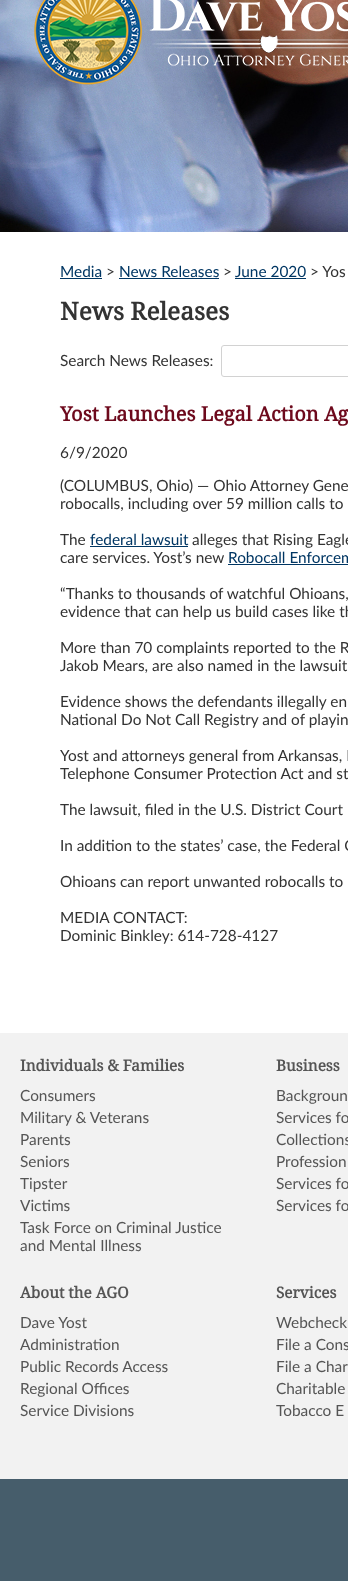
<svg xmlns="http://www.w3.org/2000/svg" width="348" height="1584">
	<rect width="100%" height="100%" fill="#FFFFFF" />
	<image x="0" y="0" width="348" height="232" href="assets/img1.png" />
	<image x="34" y="0" width="314" height="85" href="assets/img2.png" />
	<text x="60" y="277" font-family="Lato" font-size="15.4" fill="#003663">Media</text>
	<rect x="60" y="278" width="42" height="1" fill="#003663" />
	<text x="106" y="277" font-family="Lato" font-size="15.4" fill="#333333">&gt;</text>
	<text x="119" y="277" font-family="Lato" font-size="15.4" fill="#003663">News Releases</text>
	<rect x="119" y="278" width="100" height="1" fill="#003663" />
	<text x="223" y="277" font-family="Lato" font-size="15.4" fill="#333333">&gt;</text>
	<text x="235" y="277" font-family="Lato" font-size="15.4" fill="#003663">June 2020</text>
	<rect x="235" y="278" width="71" height="1" fill="#003663" />
	<text x="310" y="277" font-family="Lato" font-size="15.4" fill="#333333">&gt; Yos</text>
	<text x="60" y="320" font-family="Droid Serif" font-size="24.5" font-weight="700" fill="#333333">News Releases</text>
	<text x="60" y="366" font-family="Lato" font-size="15.4" fill="#333333">Search News Releases:</text>
	<rect x="221.5" y="345.5" width="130" height="31" rx="2.5" fill="none" stroke="#D2D2D2" />
	<text x="60" y="421" font-family="Droid Serif" font-size="20" font-weight="700" fill="#6D091C">Yost Launches Legal Action Ag</text>
	<g font-family="Lato" font-size="15.4" fill="#333333">
		<text x="60" y="458">6/9/2020</text>
		<text x="60" y="491">(COLUMBUS, Ohio) — Ohio Attorney Gene</text>
		<text x="60" y="509">robocalls, including over 59 million calls to</text>
		<text x="60" y="545">The</text>
	</g>
	<text x="90" y="545" font-family="Lato" font-size="15.4" fill="#003663">federal lawsuit</text>
	<rect x="90" y="546" width="98" height="1" fill="#003663" />
	<g font-family="Lato" font-size="15.4" fill="#333333">
		<text x="192" y="545">alleges that Rising Eagle</text>
		<text x="60" y="563">care services. Yost’s new</text>
	</g>
	<text x="228" y="563" font-family="Lato" font-size="15.4" fill="#003663">Robocall Enforcem</text>
	<rect x="228" y="564" width="120" height="1" fill="#003663" />
	<g font-family="Lato" font-size="15.4" fill="#333333">
		<text x="60" y="599">“Thanks to thousands of watchful Ohioans,</text>
		<text x="60" y="617">evidence that can help us build cases like th</text>
		<text x="60" y="653">More than 70 complaints reported to the R</text>
		<text x="60" y="671">Jakob Mears, are also named in the lawsuit</text>
		<text x="60" y="707">Evidence shows the defendants illegally en</text>
		<text x="60" y="725">National Do Not Call Registry and of playin</text>
		<text x="60" y="761">Yost and attorneys general from Arkansas, I</text>
		<text x="60" y="779">Telephone Consumer Protection Act and st</text>
		<text x="60" y="815">The lawsuit, filed in the U.S. District Court</text>
		<text x="60" y="851">In addition to the states’ case, the Federal C</text>
		<text x="60" y="887">Ohioans can report unwanted robocalls to</text>
		<text x="60" y="923">MEDIA CONTACT:</text>
		<text x="60" y="941">Dominic Binkley: 614-728-4127</text>
	</g>
	<rect x="0" y="1033" width="348" height="446" fill="#F2F2F2" />
	<text x="20" y="1071" font-family="Droid Serif" font-size="15.4" font-weight="700" fill="#555555">Individuals &amp; Families</text>
	<g font-family="Lato" font-size="15.4" fill="#555555">
		<text x="20" y="1101">Consumers</text>
		<text x="20" y="1123">Military &amp; Veterans</text>
		<text x="20" y="1145">Parents</text>
		<text x="20" y="1167">Seniors</text>
		<text x="20" y="1189">Tipster</text>
		<text x="20" y="1211">Victims</text>
		<text x="20" y="1233">Task Force on Criminal Justice</text>
		<text x="20" y="1251">and Mental Illness</text>
	</g>
	<text x="276" y="1071" font-family="Droid Serif" font-size="15.4" font-weight="700" fill="#555555">Business</text>
	<g font-family="Lato" font-size="15.4" fill="#555555">
		<text x="276" y="1101">Backgroun</text>
		<text x="276" y="1123">Services fo</text>
		<text x="276" y="1145">Collections</text>
		<text x="276" y="1167">Profession</text>
		<text x="276" y="1189">Services fo</text>
		<text x="276" y="1211">Services fo</text>
	</g>
	<text x="20" y="1298" font-family="Droid Serif" font-size="15.4" font-weight="700" fill="#555555">About the AGO</text>
	<g font-family="Lato" font-size="15.4" fill="#555555">
		<text x="20" y="1328">Dave Yost</text>
		<text x="20" y="1350">Administration</text>
		<text x="20" y="1372">Public Records Access</text>
		<text x="20" y="1394">Regional Offices</text>
		<text x="20" y="1416">Service Divisions</text>
	</g>
	<text x="276" y="1298" font-family="Droid Serif" font-size="15.4" font-weight="700" fill="#555555">Services</text>
	<g font-family="Lato" font-size="15.4" fill="#555555">
		<text x="276" y="1328">Webcheck</text>
		<text x="276" y="1350">File a Cons</text>
		<text x="276" y="1372">File a Char</text>
		<text x="276" y="1394">Charitable</text>
		<text x="276" y="1416">Tobacco E</text>
	</g>
	<rect x="0" y="1479" width="348" height="102" fill="#465D6B" />
</svg>
